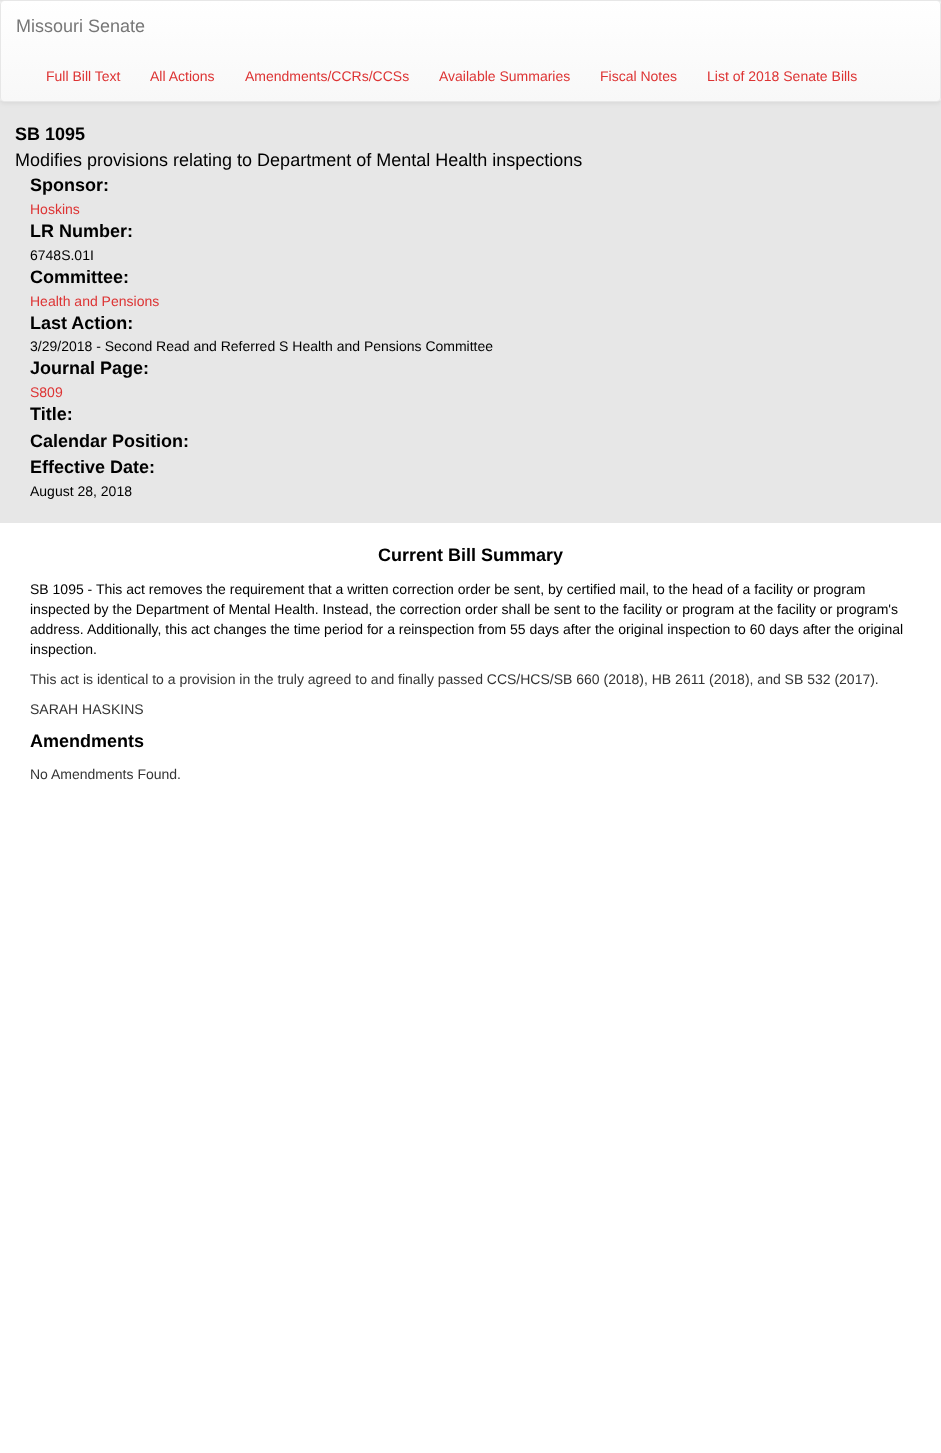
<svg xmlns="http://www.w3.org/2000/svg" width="941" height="1453">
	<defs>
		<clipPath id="clip1"><rect x="0" y="0" width="941" height="102" rx="4" /></clipPath>
		<linearGradient id="g1" gradientUnits="userSpaceOnUse" x1="471" y1="1" x2="471" y2="101"><stop offset="0" stop-color="#FFFFFF" /><stop offset="1" stop-color="#F8F8F8" /></linearGradient>
	</defs>
	<rect width="100%" height="100%" fill="#FFFFFF" />
	<rect x="0" y="0" width="941" height="523" fill="#E7E7E7" />
	<rect x="0" y="1" width="941" height="102" rx="4" fill="#000000" fill-opacity="0.07" filter="blur(2.5px)" />
	<g clip-path="url(#clip1)">
		<rect x="0" y="1" width="941" height="100" fill="url(#g1)" />
	</g>
	<rect x="0.5" y="0.5" width="940" height="101" rx="3.5" fill="none" stroke="#E7E7E7" />
	<text x="16" y="32" font-family="Liberation Sans" font-size="18" fill="#777777">Missouri Senate</text>
	<g font-family="Liberation Sans" font-size="14" fill="#DD3333">
		<text x="46" y="81">Full Bill Text</text>
		<text x="150" y="81">All Actions</text>
		<text x="245" y="81">Amendments/CCRs/CCSs</text>
		<text x="439" y="81">Available Summaries</text>
		<text x="600" y="81">Fiscal Notes</text>
		<text x="707" y="81">List of 2018 Senate Bills</text>
	</g>
	<text x="15" y="140" font-family="Liberation Sans" font-size="18" font-weight="700" fill="#000000">SB 1095</text>
	<text x="15" y="166" font-family="Liberation Sans" font-size="18" fill="#000000">Modifies provisions relating to Department of Mental Health inspections</text>
	<text x="30" y="191" font-family="Liberation Sans" font-size="18" font-weight="700" fill="#000000">Sponsor:</text>
	<text x="30" y="214" font-family="Liberation Sans" font-size="14" fill="#DD3333">Hoskins</text>
	<text x="30" y="237" font-family="Liberation Sans" font-size="18" font-weight="700" fill="#000000">LR Number:</text>
	<text x="30" y="260" font-family="Liberation Sans" font-size="14" fill="#000000">6748S.01I</text>
	<text x="30" y="283" font-family="Liberation Sans" font-size="18" font-weight="700" fill="#000000">Committee:</text>
	<text x="30" y="306" font-family="Liberation Sans" font-size="14" fill="#DD3333">Health and Pensions</text>
	<text x="30" y="329" font-family="Liberation Sans" font-size="18" font-weight="700" fill="#000000">Last Action:</text>
	<text x="30" y="351" font-family="Liberation Sans" font-size="14" fill="#000000">3/29/2018 - Second Read and Referred S Health and Pensions Committee</text>
	<text x="30" y="374" font-family="Liberation Sans" font-size="18" font-weight="700" fill="#000000">Journal Page:</text>
	<text x="30" y="397" font-family="Liberation Sans" font-size="14" fill="#DD3333">S809</text>
	<g font-family="Liberation Sans" font-size="18" font-weight="700" fill="#000000">
		<text x="30" y="420">Title:</text>
		<text x="30" y="447">Calendar Position:</text>
		<text x="30" y="473">Effective Date:</text>
	</g>
	<text x="30" y="496" font-family="Liberation Sans" font-size="14" fill="#000000">August 28, 2018</text>
	<text x="378" y="561" font-family="Liberation Sans" font-size="18" font-weight="700" fill="#000000">Current Bill Summary</text>
	<g font-family="Liberation Sans" font-size="14" fill="#000000">
		<text x="30" y="594">SB 1095 - This act removes the requirement that a written correction order be sent, by certified mail, to the head of a facility or program</text>
		<text x="30" y="614">inspected by the Department of Mental Health. Instead, the correction order shall be sent to the facility or program at the facility or program's</text>
		<text x="30" y="634">address.</text>
		<text x="87" y="634">Additionally, this act changes the time period for a reinspection from 55 days after the original inspection to 60 days after the original</text>
		<text x="30" y="654">inspection.</text>
	</g>
	<g font-family="Liberation Sans" font-size="14" fill="#333333">
		<text x="30" y="684">This act is identical to a provision in the truly agreed to and finally passed CCS/HCS/SB 660 (2018), HB 2611 (2018), and SB 532 (2017).</text>
		<text x="30" y="714">SARAH HASKINS</text>
	</g>
	<text x="30" y="747" font-family="Liberation Sans" font-size="18" font-weight="700" fill="#000000">Amendments</text>
	<text x="30" y="779" font-family="Liberation Sans" font-size="14" fill="#333333">No Amendments Found.</text>
</svg>
